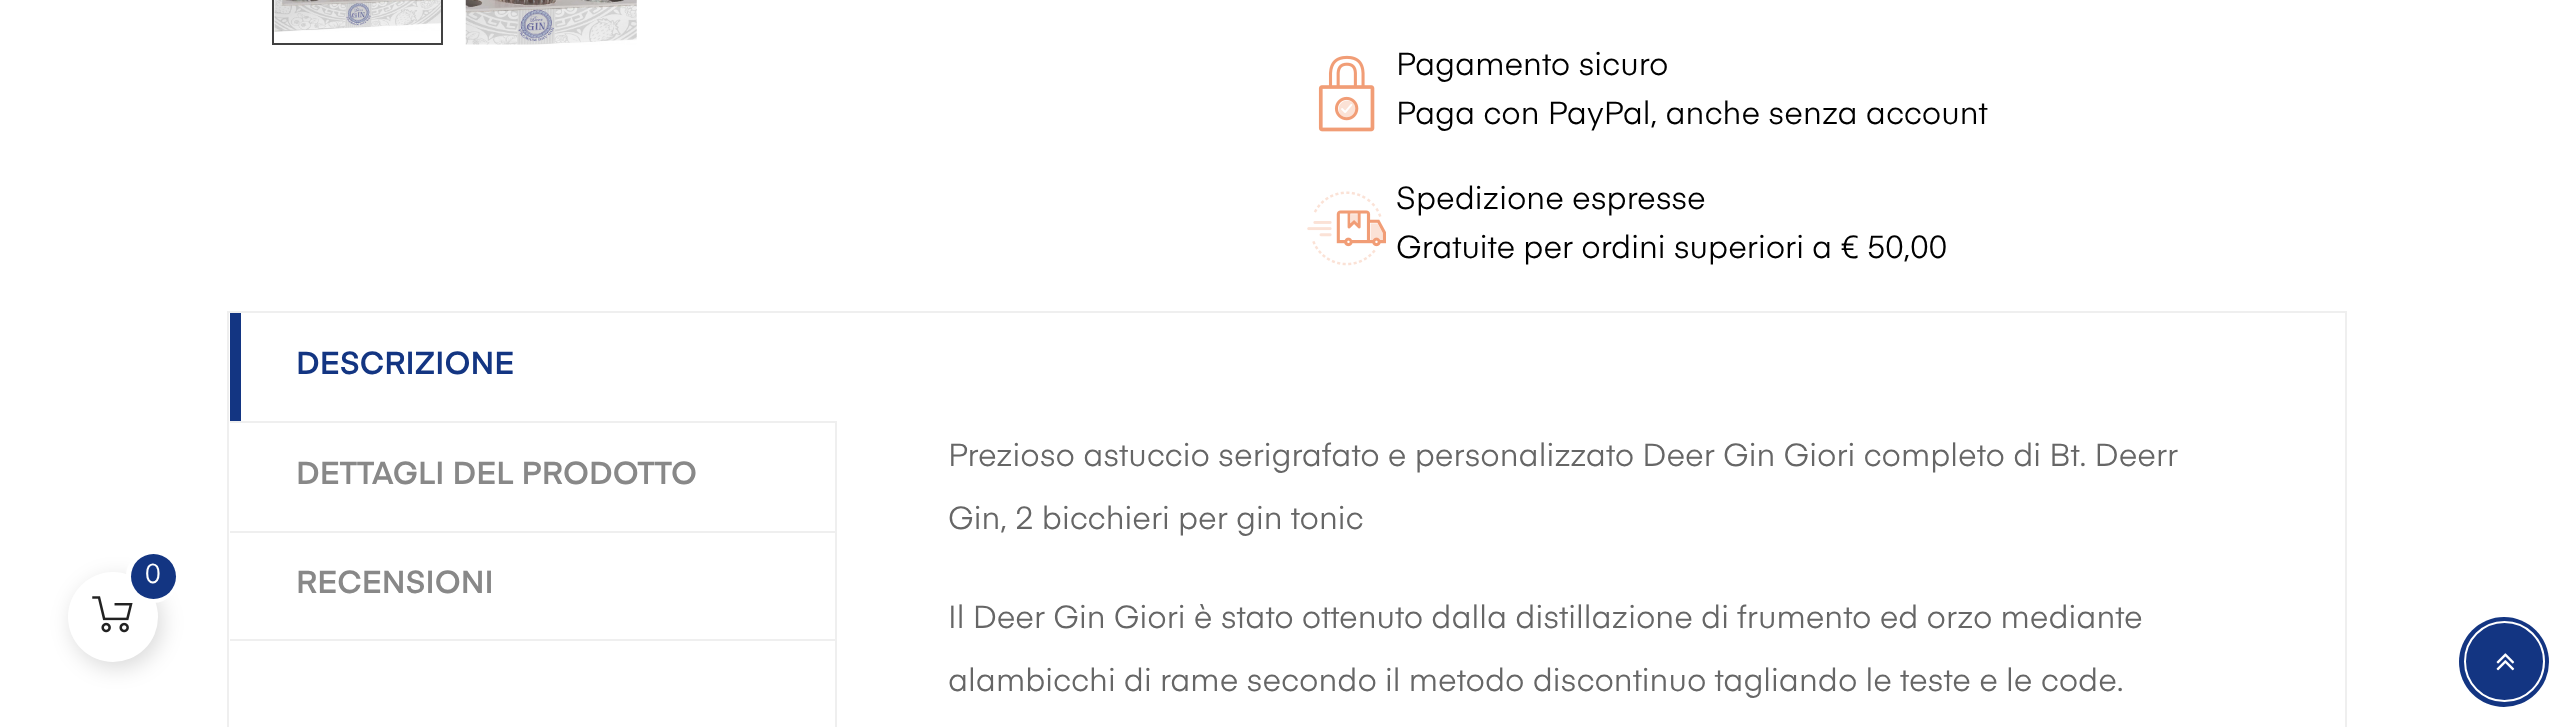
<svg xmlns="http://www.w3.org/2000/svg" width="2571" height="727">
	<rect width="100%" height="100%" fill="#FFFFFF" />
	<rect x="72" y="578" width="90" height="90" rx="45" fill="#000000" fill-opacity="0.15" filter="blur(11px)" />
	<circle cx="113" cy="617" r="45" fill="#FFFFFF" />
	<image x="92" y="596" width="41" height="37" href="assets/img1.png" />
	<circle cx="153" cy="576" r="24.5" fill="none" stroke="#FFFFFF" stroke-width="5" />
	<circle cx="153.5" cy="576.5" r="22.5" fill="#133582" />
	<text x="145" y="583" font-family="'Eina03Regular'" font-size="27" fill="#FFFFFF">0</text>
	<rect x="273" y="-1" width="169" height="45" fill="none" stroke="#414141" stroke-width="2" />
	<image x="274" y="0" width="167" height="32" href="assets/img2.png" />
	<image x="465" y="0" width="172" height="45" href="assets/img3.png" />
	<image x="1318" y="55" width="57" height="77" href="assets/img4.png" />
	<g font-family="'Eina03Regular'" font-size="31.5" fill="#000000">
		<text x="1396" y="75">Pagamento sicuro</text>
		<text x="1396" y="124">Paga con PayPal, anche senza account</text>
	</g>
	<image x="1307" y="191" width="79" height="75" href="assets/img5.png" />
	<g font-family="'Eina03Regular'" font-size="31.5" fill="#000000">
		<text x="1396" y="209">Spedizione espresse</text>
		<text x="1396" y="258">Gratuite per ordini superiori a € 50,00</text>
	</g>
	<rect x="228" y="312" width="2118" height="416" fill="none" stroke="#EFEFEF" stroke-width="2" />
	<rect x="835" y="423" width="2" height="304" fill="#EFEFEF" />
	<rect x="230" y="421" width="607" height="2" fill="#EFEFEF" />
	<rect x="230" y="313" width="11" height="108" fill="#133582" />
	<text x="296" y="374" font-family="'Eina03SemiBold'" font-size="31.5" font-weight="600" fill="#133582">DESCRIZIONE</text>
	<rect x="230" y="531" width="607" height="2" fill="#EFEFEF" />
	<text x="296" y="484" font-family="'Eina03SemiBold'" font-size="31.5" font-weight="600" fill="#888888">DETTAGLI DEL PRODOTTO</text>
	<rect x="230" y="639" width="607" height="2" fill="#EFEFEF" />
	<text x="296" y="593" font-family="'Eina03SemiBold'" font-size="31.5" font-weight="600" fill="#888888">RECENSIONI</text>
	<g font-family="'Eina03Regular'" font-size="31.5" fill="#666666">
		<text x="948" y="466">Prezioso astuccio serigrafato e personalizzato Deer Gin Giori completo di Bt. Deerr</text>
		<text x="948" y="529">Gin, 2 bicchieri per gin tonic</text>
		<text x="948" y="628">Il Deer Gin Giori è stato ottenuto dalla distillazione di frumento ed orzo mediante</text>
		<text x="948" y="691">alambicchi di rame secondo il metodo discontinuo tagliando le teste e le code.</text>
	</g>
	<circle cx="2504" cy="662" r="45" fill="#133582" />
	<circle cx="2504.5" cy="661.5" r="39.5" fill="none" stroke="#FFFFFF" stroke-width="2" />
	<image x="2496" y="653" width="19" height="18" href="assets/img6.png" />
</svg>
